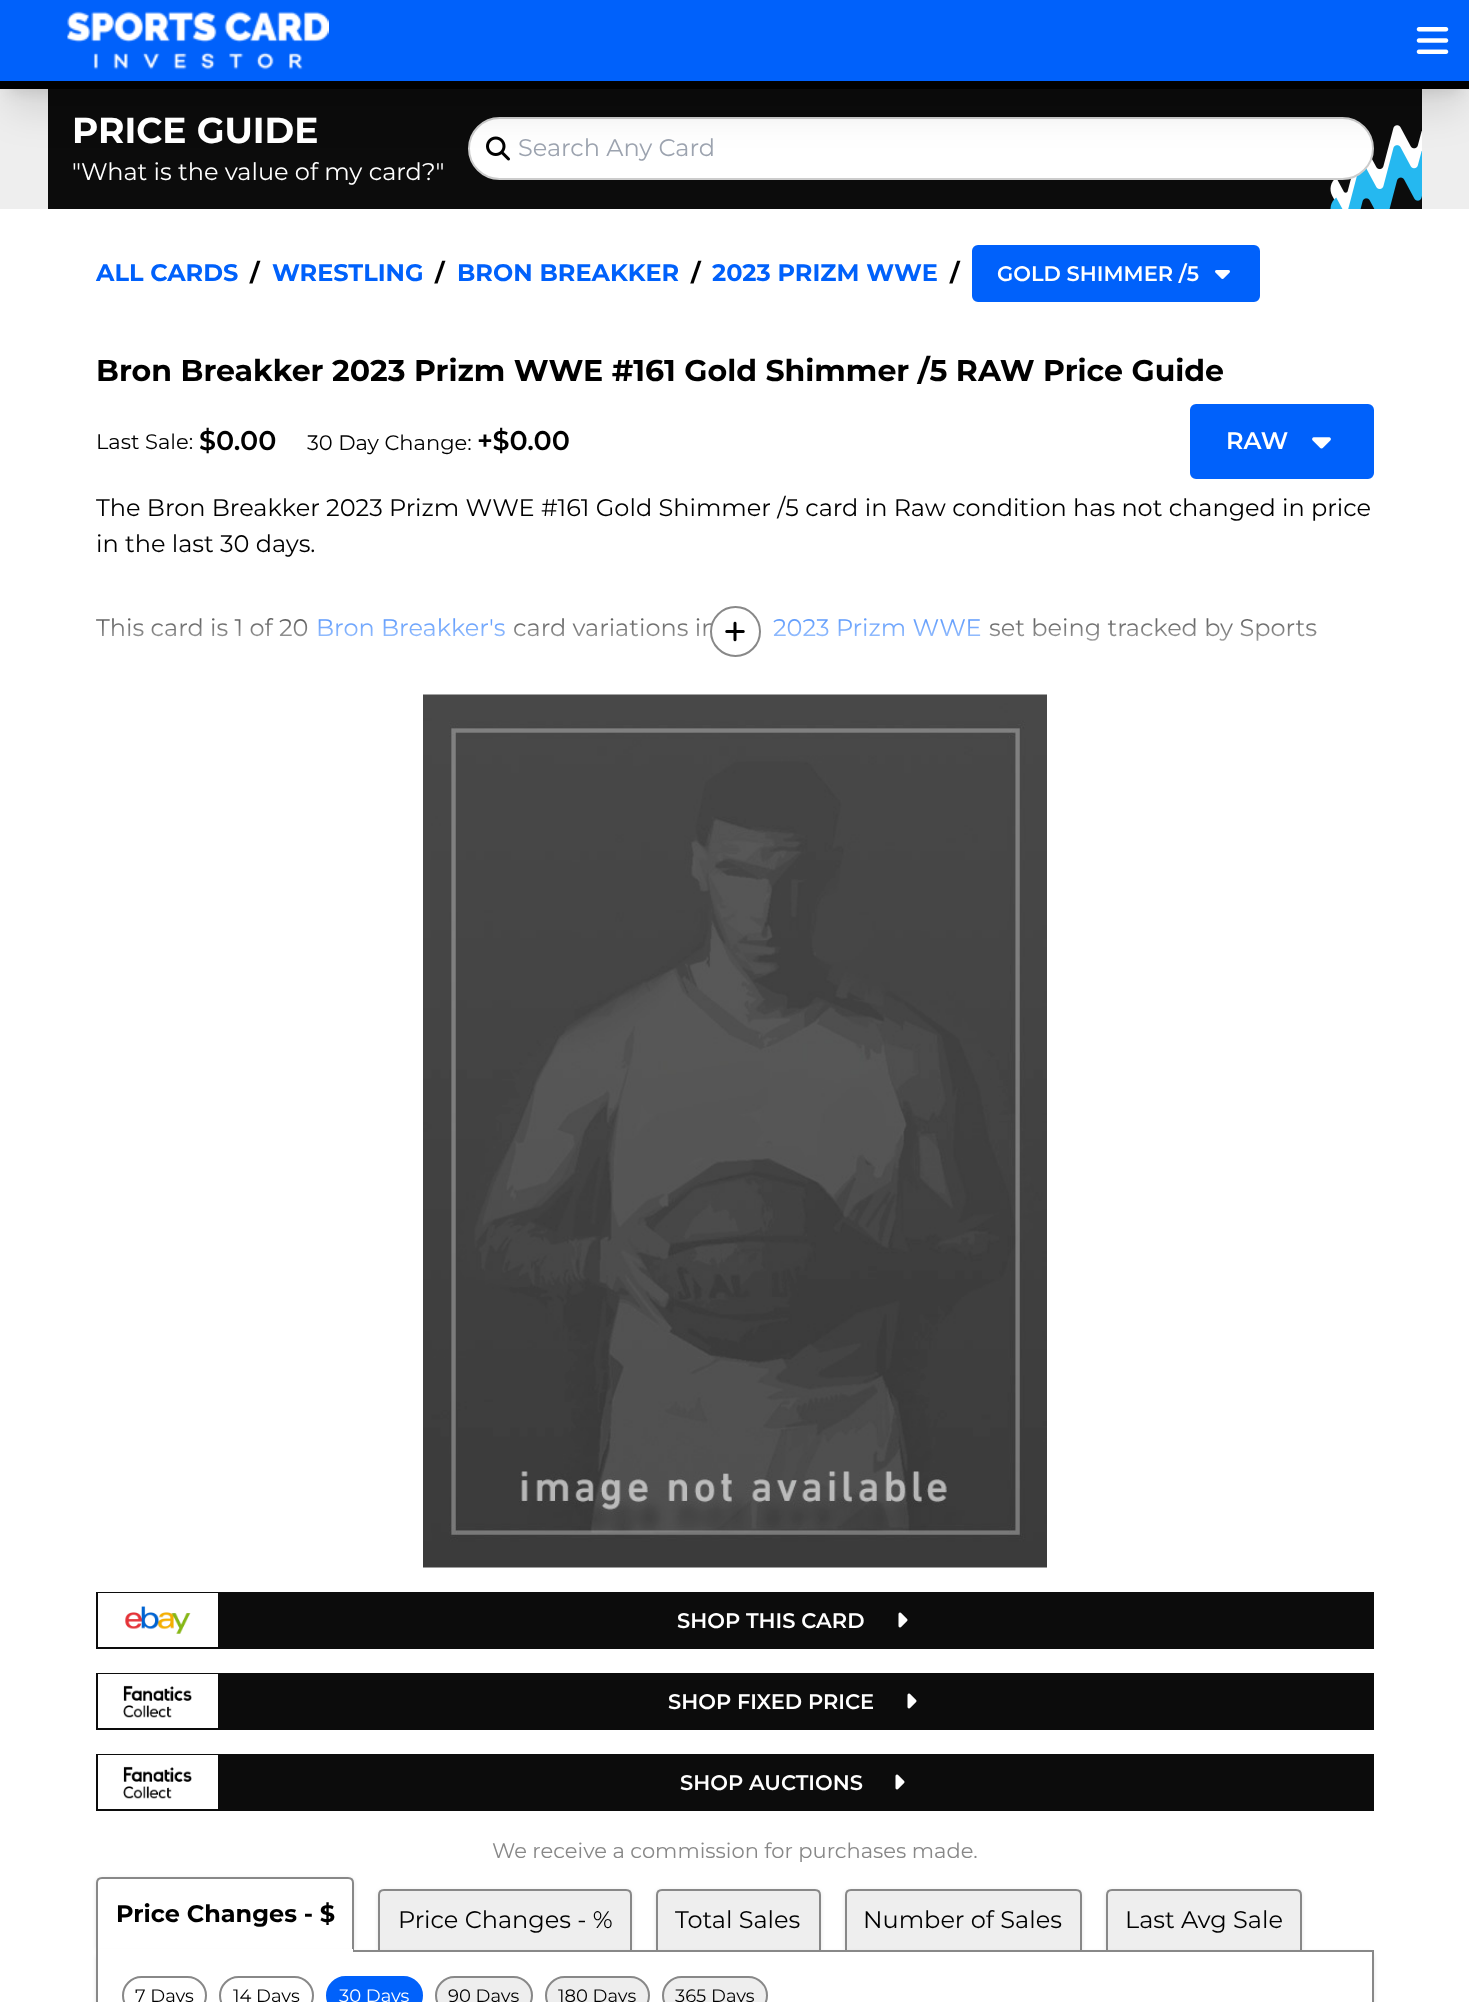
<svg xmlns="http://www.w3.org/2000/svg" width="1469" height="2002">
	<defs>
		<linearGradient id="g1" gradientUnits="userSpaceOnUse" x1="735" y1="683" x2="735" y2="587"><stop offset="0.1" stop-color="#FFFFFF" /><stop offset="1" stop-color="#FFFFFF" stop-opacity="0" /></linearGradient>
	</defs>
	<rect width="100%" height="100%" fill="#FFFFFF" />
	<rect x="0" y="89" width="1469" height="120" fill="#EEEEEE" />
	<rect x="48" y="89" width="1374" height="120" fill="#0C0C0C" />
	<rect x="9" y="21" width="1452" height="71" fill="#000000" fill-opacity="0.1" filter="blur(7.5px)" />
	<image x="1330" y="125" width="92" height="84" href="assets/img4.png" />
	<rect x="469" y="118" width="904" height="61" rx="30.5" fill="#FFFFFF" stroke="#CCCCCC" stroke-width="2" />
	<image x="486" y="136" width="24" height="25" href="assets/img3.png" />
	<rect x="8" y="38" width="1455" height="73" fill="#000000" fill-opacity="0.1" filter="blur(19px)" />
	<rect x="0" y="0" width="1469" height="81" fill="#0061FB" />
	<rect x="0" y="81" width="1469" height="8" fill="#000000" />
	<image x="67" y="11" width="262" height="59" href="assets/img1.png" />
	<image x="1416" y="27" width="33" height="27" href="assets/img2.png" />
	<text x="72" y="143" font-family="Montserrat" font-size="36" font-weight="700" fill="#FFFFFF">PRICE GUIDE</text>
	<text x="72" y="180" font-family="Montserrat" font-size="24" fill="#FFFFFF">"What is the value of my card?"</text>
	<text x="518" y="156" font-family="Montserrat" font-size="24" fill="#9CA3AF">Search Any Card</text>
	<text x="96" y="281" font-family="Montserrat" font-size="24" font-weight="700" fill="#0061FB">ALL CARDS</text>
	<text x="250" y="281" font-family="Montserrat" font-size="24" font-weight="700" fill="#000000">/</text>
	<text x="272" y="281" font-family="Montserrat" font-size="24" font-weight="700" fill="#0061FB">WRESTLING</text>
	<text x="435" y="281" font-family="Montserrat" font-size="24" font-weight="700" fill="#000000">/</text>
	<text x="457" y="281" font-family="Montserrat" font-size="24" font-weight="700" fill="#0061FB">BRON BREAKKER</text>
	<text x="691" y="281" font-family="Montserrat" font-size="24" font-weight="700" fill="#000000">/</text>
	<text x="712" y="281" font-family="Montserrat" font-size="24" font-weight="700" fill="#0061FB">2023 PRIZM WWE</text>
	<text x="950" y="281" font-family="Montserrat" font-size="24" font-weight="700" fill="#000000">/</text>
	<rect x="973" y="246" width="286" height="55" rx="5" fill="#0061FB" stroke="#0061FB" stroke-width="2" />
	<text x="997" y="281" font-family="Montserrat" font-size="21" font-weight="600" fill="#FFFFFF">GOLD SHIMMER /5</text>
	<image x="1215" y="270" width="15" height="9" href="assets/img5.png" />
	<text x="96" y="381" font-family="Montserrat" font-size="30" font-weight="700" fill="#000000">Bron Breakker 2023 Prizm WWE #161 Gold Shimmer /5 RAW Price Guide</text>
	<text x="96" y="449" font-family="Montserrat" font-size="21" fill="#000000">Last Sale:</text>
	<text x="199" y="450" font-family="Montserrat" font-size="27" font-weight="600" fill="#000000">$0.00</text>
	<text x="307" y="450" font-family="Montserrat" font-size="21" fill="#000000">30 Day Change:</text>
	<text x="477" y="450" font-family="Montserrat" font-size="27" font-weight="600" fill="#000000">+$0.00</text>
	<rect x="1191" y="405" width="182" height="73" rx="5" fill="#0061FB" stroke="#0061FB" stroke-width="2" />
	<text x="1226" y="449" font-family="Montserrat" font-size="24" font-weight="600" fill="#FFFFFF">RAW</text>
	<image x="1312" y="437" width="19" height="12" href="assets/img6.png" />
	<g font-family="Montserrat" font-size="24" fill="#000000">
		<text x="96" y="516">The Bron Breakker 2023 Prizm WWE #161 Gold Shimmer /5 card in Raw condition has not changed in price</text>
		<text x="96" y="552">in the last 30 days.</text>
		<text x="96" y="636">This card is 1 of 20</text>
	</g>
	<text x="316" y="636" font-family="Montserrat" font-size="24" fill="#0061FB">Bron Breakker's</text>
	<text x="513" y="636" font-family="Montserrat" font-size="24" fill="#000000">card variations in</text>
	<text x="773" y="636" font-family="Montserrat" font-size="24" fill="#0061FB">2023 Prizm WWE</text>
	<text x="989" y="636" font-family="Montserrat" font-size="24" fill="#000000">set being tracked by Sports</text>
	<rect x="96" y="618" width="1220" height="23" fill="url(#g1)" />
	<circle cx="735.5" cy="631.5" r="24.5" fill="#FFFFFF" stroke="#888888" stroke-width="2" />
	<image x="725" y="621" width="20" height="21" href="assets/img7.png" />
	<image x="423" y="694" width="624" height="874" href="assets/img8.png" />
	<rect x="96" y="1592" width="1278" height="57" fill="#0C0C0C" />
	<rect x="98" y="1593" width="120" height="54" fill="#FFFFFF" />
	<image x="125" y="1606" width="66" height="28" href="assets/img9.png" />
	<text x="677" y="1628" font-family="Montserrat" font-size="21" font-weight="600" fill="#FFFFFF">SHOP THIS CARD</text>
	<image x="898" y="1612" width="10" height="16" href="assets/img10.png" />
	<rect x="96" y="1673" width="1278" height="57" fill="#0C0C0C" />
	<rect x="98" y="1674" width="120" height="54" fill="#FFFFFF" />
	<image x="123" y="1685" width="69" height="33" href="assets/img11.png" />
	<text x="668" y="1709" font-family="Montserrat" font-size="21" font-weight="600" fill="#FFFFFF">SHOP FIXED PRICE</text>
	<image x="907" y="1693" width="10" height="16" href="assets/img10.png" />
	<rect x="96" y="1754" width="1278" height="57" fill="#0C0C0C" />
	<rect x="98" y="1755" width="120" height="54" fill="#FFFFFF" />
	<image x="123" y="1766" width="69" height="33" href="assets/img11.png" />
	<text x="680" y="1790" font-family="Montserrat" font-size="21" font-weight="600" fill="#FFFFFF">SHOP AUCTIONS</text>
	<image x="895" y="1774" width="10" height="16" href="assets/img10.png" />
	<text x="492" y="1858" font-family="Montserrat" font-size="21" fill="#888888">We receive a commission for purchases made.</text>
	<rect x="96" y="1878" width="258" height="75" rx="6" fill="#000000" fill-opacity="0.1" filter="blur(2px)" />
	<path d="M102 1878H348C351 1878 353 1880 353 1883V1951H97V1883C97 1880 99 1878 102 1878Z" fill="#FFFFFF" stroke="#888888" stroke-width="2" />
	<text x="116" y="1922" font-family="Montserrat" font-size="24" font-weight="700" fill="#000000">Price Changes - $</text>
	<rect x="378" y="1890" width="254" height="63" rx="6" fill="#000000" fill-opacity="0.1" filter="blur(2px)" />
	<path d="M384 1890H626C629 1890 631 1892 631 1895V1951H379V1895C379 1892 381 1890 384 1890Z" fill="#EEEEEE" stroke="#888888" stroke-width="2" />
	<rect x="656" y="1890" width="165" height="63" rx="6" fill="#000000" fill-opacity="0.1" filter="blur(2px)" />
	<path d="M662 1890H815C818 1890 820 1892 820 1895V1951H657V1895C657 1892 659 1890 662 1890Z" fill="#EEEEEE" stroke="#888888" stroke-width="2" />
	<rect x="845" y="1890" width="237" height="63" rx="6" fill="#000000" fill-opacity="0.1" filter="blur(2px)" />
	<path d="M851 1890H1076C1079 1890 1081 1892 1081 1895V1951H846V1895C846 1892 848 1890 851 1890Z" fill="#EEEEEE" stroke="#888888" stroke-width="2" />
	<rect x="1106" y="1890" width="196" height="63" rx="6" fill="#000000" fill-opacity="0.1" filter="blur(2px)" />
	<path d="M1112 1890H1296C1299 1890 1301 1892 1301 1895V1951H1107V1895C1107 1892 1109 1890 1112 1890Z" fill="#EEEEEE" stroke="#888888" stroke-width="2" />
	<rect x="96" y="1952" width="1278" height="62" rx="6" fill="#000000" fill-opacity="0.1" filter="blur(2px)" />
	<rect x="97" y="1951" width="1276" height="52" fill="#FFFFFF" stroke="#888888" stroke-width="2" />
	<rect x="98" y="1949" width="255" height="3" fill="#FFFFFF" />
	<g font-family="Montserrat" font-size="24" fill="#000000">
		<text x="398" y="1928">Price Changes - %</text>
		<text x="675" y="1928">Total Sales</text>
		<text x="863" y="1928">Number of Sales</text>
		<text x="1125" y="1928">Last Avg Sale</text>
	</g>
	<rect x="123" y="1977" width="83" height="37" rx="18.5" fill="none" stroke="#888888" stroke-width="2" />
	<text x="135" y="2002" font-family="Montserrat" font-size="18" fill="#000000">7 Days</text>
	<rect x="220" y="1977" width="93" height="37" rx="18.5" fill="none" stroke="#888888" stroke-width="2" />
	<text x="233" y="2002" font-family="Montserrat" font-size="18" fill="#000000">14 Days</text>
	<rect x="327" y="1977" width="95" height="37" rx="18.5" fill="#0061FB" stroke="#0061FB" stroke-width="2" />
	<text x="339" y="2002" font-family="Montserrat" font-size="18" fill="#FFFFFF">30 Days</text>
	<rect x="436" y="1977" width="96" height="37" rx="18.5" fill="#EEEEEE" stroke="#888888" stroke-width="2" />
	<text x="448" y="2002" font-family="Montserrat" font-size="18" fill="#000000">90 Days</text>
	<rect x="546" y="1977" width="103" height="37" rx="18.5" fill="#EEEEEE" stroke="#888888" stroke-width="2" />
	<text x="558" y="2002" font-family="Montserrat" font-size="18" fill="#000000">180 Days</text>
	<rect x="663" y="1977" width="104" height="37" rx="18.5" fill="#EEEEEE" stroke="#888888" stroke-width="2" />
	<text x="675" y="2002" font-family="Montserrat" font-size="18" fill="#000000">365 Days</text>
</svg>
